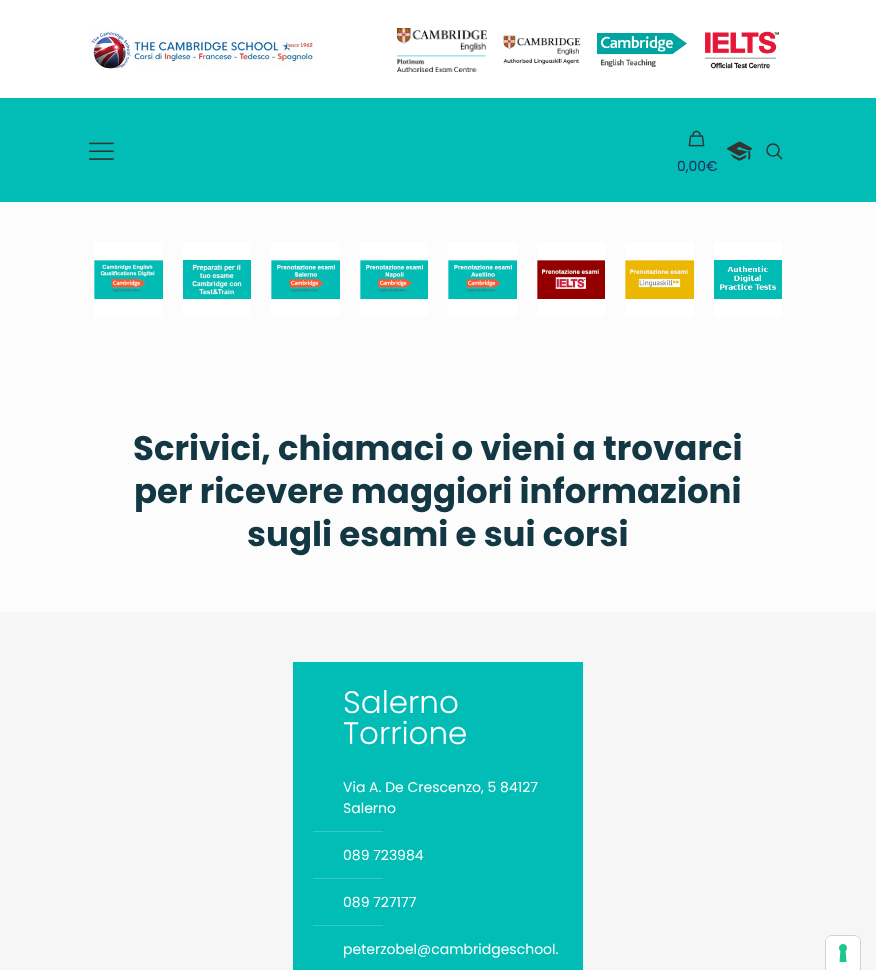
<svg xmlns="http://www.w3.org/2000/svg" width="876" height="970">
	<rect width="100%" height="100%" fill="#FCFCFC" />
	<rect x="0" y="0" width="876" height="98" fill="#FFFFFF" />
	<image x="89" y="29" width="228" height="40" href="assets/img1.png" />
	<image x="397" y="28" width="90" height="44" href="assets/img2.png" />
	<image x="503" y="35" width="78" height="30" href="assets/img3.png" />
	<image x="597" y="33" width="90" height="34" href="assets/img4.png" />
	<image x="704" y="31" width="76" height="38" href="assets/img5.png" />
	<rect x="0" y="98" width="876" height="104" fill="#01BDB6" />
	<image x="89" y="142" width="25" height="18" href="assets/img6.png" />
	<image x="727" y="141" width="25" height="20" href="assets/img7.png" />
	<circle cx="773" cy="150" r="6" fill="none" stroke="#333333" stroke-width="1.4" />
	<path d="M777 154L782 159" fill="none" stroke="#333333" stroke-width="1.4" />
	<image x="688" y="130" width="17" height="17" href="assets/img8.png" />
	<text x="677" y="171" font-family="Poppins" font-size="14" fill="#202C5A">0,00€</text>
	<rect x="94" y="242" width="69" height="75" fill="#FFFFFF" />
	<image x="94" y="260" width="69" height="39" href="assets/img9.png" />
	<rect x="183" y="242" width="68" height="75" fill="#FFFFFF" />
	<image x="183" y="260" width="68" height="39" href="assets/img10.png" />
	<rect x="271" y="242" width="69" height="75" fill="#FFFFFF" />
	<image x="271" y="260" width="69" height="39" href="assets/img11.png" />
	<rect x="360" y="242" width="68" height="75" fill="#FFFFFF" />
	<image x="360" y="260" width="68" height="39" href="assets/img12.png" />
	<rect x="448" y="242" width="69" height="75" fill="#FFFFFF" />
	<image x="448" y="260" width="69" height="39" href="assets/img13.png" />
	<rect x="537" y="242" width="68" height="75" fill="#FFFFFF" />
	<image x="537" y="260" width="68" height="39" href="assets/img14.png" />
	<rect x="625" y="242" width="69" height="75" fill="#FFFFFF" />
	<image x="625" y="260" width="69" height="39" href="assets/img15.png" />
	<rect x="714" y="242" width="68" height="75" fill="#FFFFFF" />
	<image x="714" y="260" width="68" height="39" href="assets/img16.png" />
	<g font-family="Poppins" font-size="34" font-weight="700" fill="#133844">
		<text x="133" y="460">Scrivici, chiamaci o vieni a trovarci</text>
		<text x="134" y="503">per ricevere maggiori informazioni</text>
		<text x="247" y="546">sugli esami e sui corsi</text>
	</g>
	<rect x="0" y="612" width="876" height="358" fill="#F6F6F6" />
	<rect x="293" y="662" width="290" height="308" fill="#01BDB6" />
	<g font-family="Poppins" font-size="31" font-weight="300" fill="#FFFFFF">
		<text x="343" y="713">Salerno</text>
		<text x="343" y="744">Torrione</text>
	</g>
	<g font-family="Poppins" font-size="14" fill="#FFFFFF">
		<text x="343" y="792">Via A. De Crescenzo, 5 84127</text>
		<text x="343" y="813">Salerno</text>
	</g>
	<rect x="313" y="831" width="70" height="1" fill="#34CAC5" />
	<text x="343" y="860" font-family="Poppins" font-size="14" fill="#FFFFFF">089 723984</text>
	<rect x="313" y="878" width="70" height="1" fill="#34CAC5" />
	<text x="343" y="907" font-family="Poppins" font-size="14" fill="#FFFFFF">089 727177</text>
	<rect x="313" y="925" width="70" height="1" fill="#34CAC5" />
	<text x="343" y="954" font-family="Poppins" font-size="14" fill="#FFFFFF">peterzobel@cambridgeschool.</text>
	<path d="M832 935.5H854C857.5 935.5 860.5 938.5 860.5 942V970.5H825.5V942C825.5 938.5 828.5 935.5 832 935.5Z" fill="none" stroke="#D1D1D1" />
	<path d="M832 936H854C857.5 936 860 938.5 860 942V970H826V942C826 938.5 828.5 936 832 936Z" fill="#FFFFFF" />
	<image x="839" y="944" width="8" height="18" href="assets/img17.png" />
</svg>
